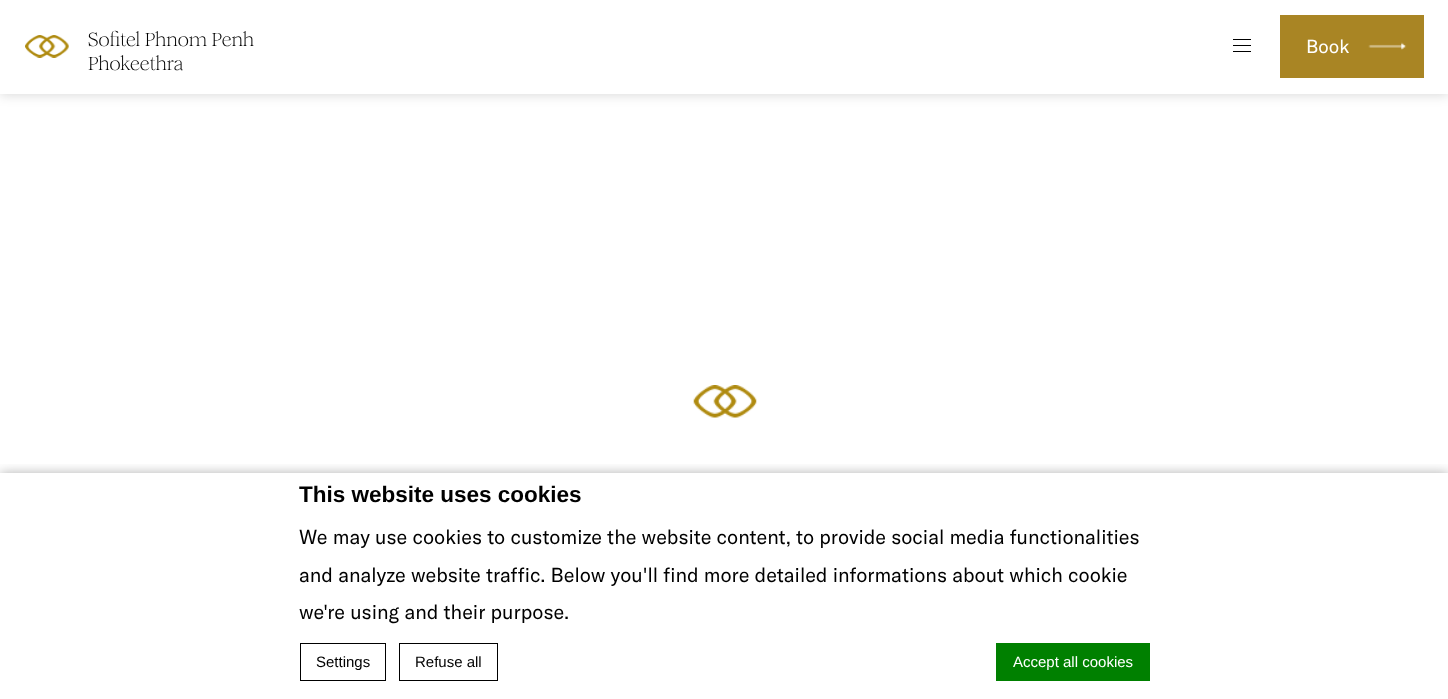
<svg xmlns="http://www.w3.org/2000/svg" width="1448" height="699">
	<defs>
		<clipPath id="clip1"><rect x="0" y="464" width="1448" height="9" /></clipPath>
	</defs>
	<rect width="100%" height="100%" fill="#FFFFFF" />
	<rect x="0" y="1" width="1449" height="94" fill="#000000" fill-opacity="0.15" filter="blur(6px)" />
	<rect x="0" y="0" width="1448" height="94" fill="#FFFFFF" />
	<image x="25" y="35" width="44" height="23" href="assets/img1.png" />
	<g font-family="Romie" font-size="18.75" fill="#000000">
		<text x="88" y="46">Sofitel Phnom Penh</text>
		<text x="88" y="70">Phokeethra</text>
	</g>
	<rect x="1233" y="45" width="18" height="1" fill="#000000" />
	<rect x="1233" y="39" width="18" height="1" fill="#000000" />
	<rect x="1233" y="51" width="18" height="1" fill="#000000" />
	<rect x="1280" y="15" width="144" height="63" fill="#A98524" />
	<image x="1368" y="42" width="39" height="8" href="assets/img2.png" />
	<text x="1306" y="53" font-family="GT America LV" font-size="18.75" fill="#FFFFFF">Book</text>
	<image x="693" y="385" width="64" height="33" href="assets/img3.png" />
	<g clip-path="url(#clip1)">
		<rect x="0" y="473" width="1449" height="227" fill="#000000" fill-opacity="0.3" filter="blur(6px)" />
	</g>
	<text x="299" y="502" font-family="Liberation Sans" font-size="22.5" font-weight="700" fill="#000000">This website uses cookies</text>
	<g font-family="GT America LV" font-size="20" fill="#000000">
		<text x="299" y="544">We may use cookies to customize the website content, to provide social media functionalities</text>
		<text x="299" y="582">and analyze website traffic. Below you'll find more detailed informations about which cookie</text>
		<text x="299" y="619">we're using and their purpose.</text>
	</g>
	<rect x="300.5" y="643.5" width="85" height="37" fill="none" stroke="#000000" />
	<text x="316" y="667" font-family="Liberation Sans" font-size="15" fill="#000000">Settings</text>
	<rect x="399.5" y="643.5" width="98" height="37" fill="none" stroke="#000000" />
	<text x="415" y="667" font-family="Liberation Sans" font-size="15" fill="#000000">Refuse all</text>
	<rect x="996" y="643" width="154" height="38" fill="#008000" />
	<text x="1013" y="667" font-family="Liberation Sans" font-size="15" fill="#FFFFFF">Accept all cookies</text>
</svg>
